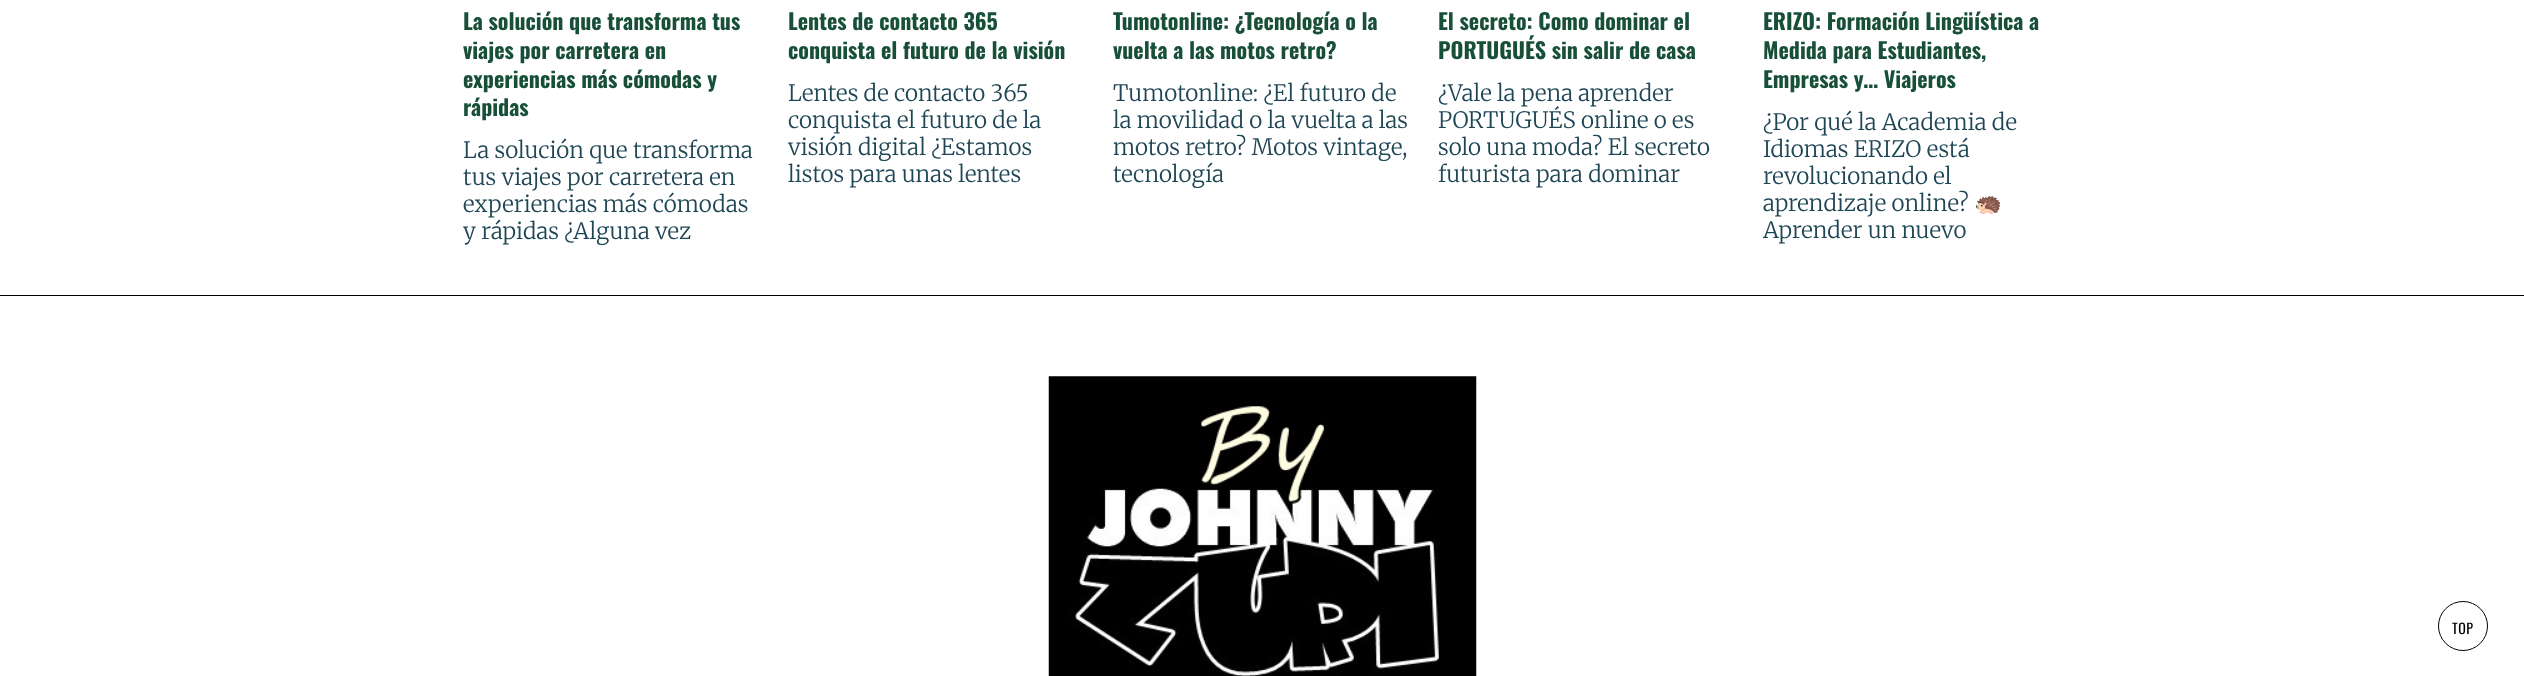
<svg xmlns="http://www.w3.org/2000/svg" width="2524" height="676">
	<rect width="100%" height="100%" fill="#FFFFFF" />
	<g font-family="Oswald" font-size="22" font-weight="700" fill="#184F39">
		<text x="463" y="30">La solución que transforma tus</text>
		<text x="463" y="59">viajes por carretera en</text>
		<text x="463" y="88">experiencias más cómodas y</text>
		<text x="463" y="116">rápidas</text>
	</g>
	<g font-family="Merriweather" font-size="22.5" font-weight="300" fill="#1F4655">
		<text x="463" y="158">La solución que transforma</text>
		<text x="463" y="185">tus viajes por carretera en</text>
		<text x="463" y="212">experiencias más cómodas</text>
		<text x="463" y="239">y rápidas ¿Alguna vez</text>
	</g>
	<g font-family="Oswald" font-size="22" font-weight="700" fill="#184F39">
		<text x="788" y="30">Lentes de contacto 365</text>
		<text x="788" y="59">conquista el futuro de la visión</text>
	</g>
	<g font-family="Merriweather" font-size="22.5" font-weight="300" fill="#1F4655">
		<text x="788" y="101">Lentes de contacto 365</text>
		<text x="788" y="128">conquista el futuro de la</text>
		<text x="788" y="155">visión digital ¿Estamos</text>
		<text x="788" y="182">listos para unas lentes</text>
	</g>
	<g font-family="Oswald" font-size="22" font-weight="700" fill="#184F39">
		<text x="1113" y="30">Tumotonline: ¿Tecnología o la</text>
		<text x="1113" y="59">vuelta a las motos retro?</text>
	</g>
	<g font-family="Merriweather" font-size="22.5" font-weight="300" fill="#1F4655">
		<text x="1113" y="101">Tumotonline: ¿El futuro de</text>
		<text x="1113" y="128">la movilidad o la vuelta a las</text>
		<text x="1113" y="155">motos retro? Motos vintage,</text>
		<text x="1113" y="182">tecnología</text>
	</g>
	<g font-family="Oswald" font-size="22" font-weight="700" fill="#184F39">
		<text x="1438" y="30">El secreto: Como dominar el</text>
		<text x="1438" y="59">PORTUGUÉS sin salir de casa</text>
	</g>
	<g font-family="Merriweather" font-size="22.5" font-weight="300" fill="#1F4655">
		<text x="1438" y="101">¿Vale la pena aprender</text>
		<text x="1438" y="128">PORTUGUÉS online o es</text>
		<text x="1438" y="155">solo una moda? El secreto</text>
		<text x="1438" y="182">futurista para dominar</text>
	</g>
	<g font-family="Oswald" font-size="22" font-weight="700" fill="#184F39">
		<text x="1763" y="30">ERIZO: Formación Lingüística a</text>
		<text x="1763" y="59">Medida para Estudiantes,</text>
		<text x="1763" y="88">Empresas y… Viajeros</text>
	</g>
	<g font-family="Merriweather" font-size="22.5" font-weight="300" fill="#1F4655">
		<text x="1763" y="130">¿Por qué la Academia de</text>
		<text x="1763" y="157">Idiomas ERIZO está</text>
		<text x="1763" y="184">revolucionando el</text>
		<text x="1763" y="211">aprendizaje online?</text>
	</g>
	<text x="1974" y="211" font-family="Noto Color Emoji" font-size="22.5" fill="#1F4655">🦔</text>
	<text x="1763" y="238" font-family="Merriweather" font-size="22.5" font-weight="300" fill="#1F4655">Aprender un nuevo</text>
	<rect x="0" y="295" width="2524" height="1" fill="#000000" />
	<image x="1048" y="376" width="429" height="300" href="assets/img1.png" />
	<circle cx="2463" cy="626" r="24.5" fill="none" stroke="#000000" />
	<text x="2452" y="634" font-family="Oswald" font-size="14" letter-spacing="0.5" fill="#000000">TOP</text>
</svg>
